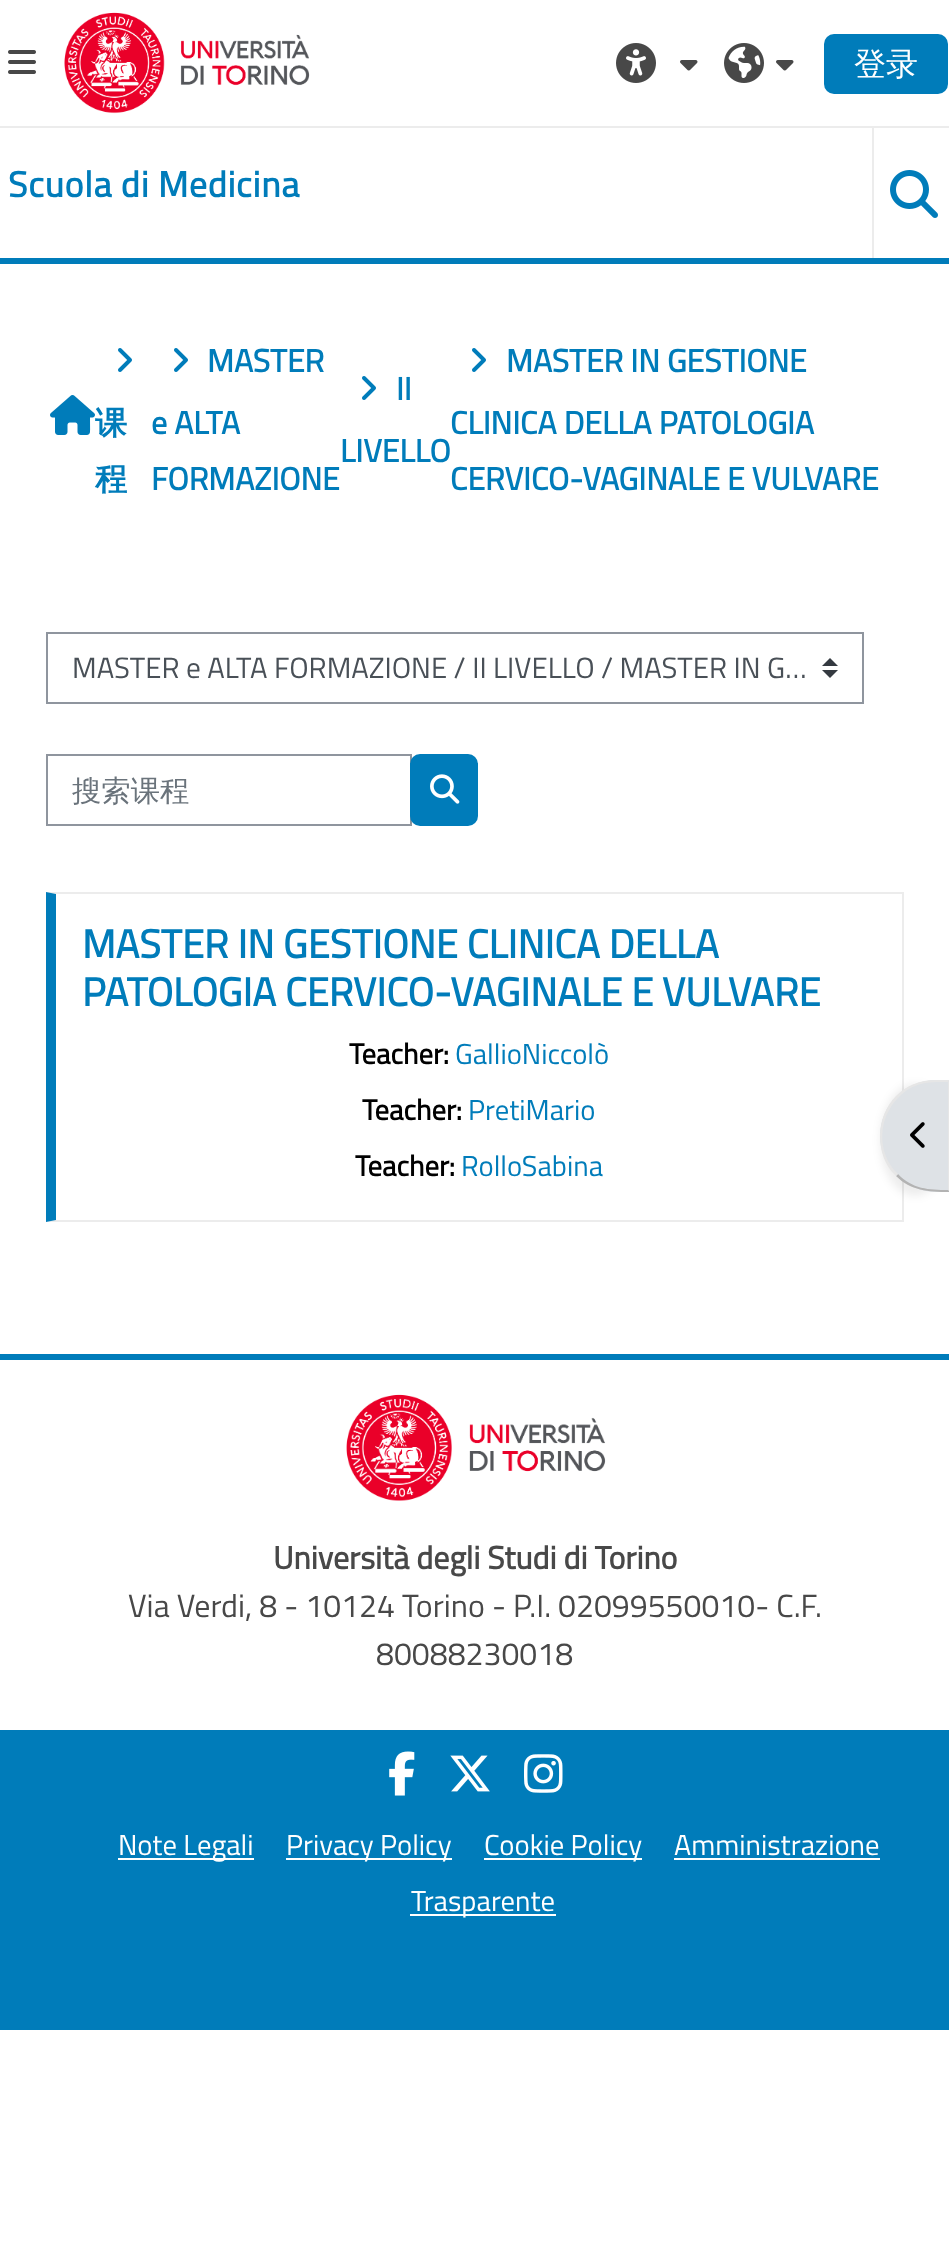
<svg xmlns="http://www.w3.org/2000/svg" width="949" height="2265">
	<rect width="100%" height="100%" fill="#FFFFFF" />
	<rect x="0" y="258" width="949" height="6" fill="#007CBA" />
	<rect x="0" y="126" width="949" height="2" fill="#ECECEC" />
	<image x="8" y="50" width="28" height="24" href="assets/img1.png" />
	<image x="64" y="12" width="246" height="102" href="assets/img2.png" />
	<image x="616" y="43" width="40" height="40" href="assets/img3.png" />
	<image x="680" y="60" width="18" height="11" href="assets/img4.png" />
	<image x="724" y="43" width="40" height="40" href="assets/img5.png" />
	<image x="776" y="60" width="18" height="11" href="assets/img4.png" />
	<rect x="824" y="34" width="124" height="60" rx="10" fill="#007CBA" />
	<text x="854" y="75" font-family="WenQuanYi Zen Hei" font-size="32" font-weight="500" fill="#FFFFFF">登录</text>
	<text x="8" y="197" font-family="Titillium Web" font-size="36" font-weight="700" letter-spacing="0.75" fill="#007CBA">Scuola di Medicina</text>
	<rect x="872" y="128" width="2" height="130" fill="#ECECEC" />
	<image x="890" y="170" width="48" height="48" href="assets/img6.png" />
	<image x="50" y="395" width="45" height="40" href="assets/img7.png" />
	<image x="118" y="348" width="14" height="24" href="assets/img8.png" />
	<g font-family="WenQuanYi Zen Hei" font-size="32" font-weight="700" fill="#007CBA">
		<text x="95" y="434">课</text>
		<text x="95" y="490">程</text>
	</g>
	<image x="174" y="348" width="14" height="24" href="assets/img8.png" />
	<g font-family="Titillium Web" font-size="32" font-weight="700" fill="#007CBA">
		<text x="207" y="372">MASTER</text>
		<text x="151" y="434">e ALTA</text>
		<text x="151" y="490">FORMAZIONE</text>
	</g>
	<image x="362" y="376" width="14" height="24" href="assets/img8.png" />
	<g font-family="Titillium Web" font-size="32" font-weight="700" fill="#007CBA">
		<text x="396" y="400">II</text>
		<text x="340" y="462">LIVELLO</text>
	</g>
	<image x="472" y="348" width="14" height="24" href="assets/img8.png" />
	<g font-family="Titillium Web" font-size="32" font-weight="700" fill="#007CBA">
		<text x="506" y="372">MASTER IN GESTIONE</text>
		<text x="450" y="434">CLINICA DELLA PATOLOGIA</text>
		<text x="450" y="490">CERVICO-VAGINALE E VULVARE</text>
	</g>
	<path d="M830 658L822 666H838ZM830 678L822 670H838Z" fill="#343A40" />
	<rect x="47" y="633" width="816" height="70" fill="none" stroke="#8F959E" stroke-width="2" />
	<text x="72" y="678" font-family="Titillium Web" font-size="29.35" fill="#495057">MASTER e ALTA FORMAZIONE / II LIVELLO / MASTER IN G…</text>
	<rect x="47" y="755" width="364" height="70" fill="none" stroke="#8F959E" stroke-width="2" />
	<text x="72" y="801" font-family="WenQuanYi Zen Hei" font-size="29.35" font-weight="500" fill="#6A737B">搜索课程</text>
	<rect x="410" y="754" width="68" height="72" rx="10" fill="#007CBA" />
	<image x="430" y="774" width="30" height="30" href="assets/img9.png" />
	<path d="M46 892H904L902 894H56Z" fill="#ECECEC" />
	<rect x="902" y="892" width="2" height="330" fill="#ECECEC" />
	<path d="M904 1222H46L56 1220H902Z" fill="#ECECEC" />
	<path d="M46 1222V892L56 894V1220Z" fill="#007CBA" />
	<g font-family="Titillium Web" font-size="40" font-weight="700" fill="#007CBA">
		<text x="82" y="958">MASTER IN GESTIONE CLINICA DELLA</text>
		<text x="82" y="1006">PATOLOGIA CERVICO-VAGINALE E VULVARE</text>
	</g>
	<text x="349" y="1064" font-family="Titillium Web" font-size="28.75" font-weight="700" fill="#000000">Teacher:</text>
	<text x="455" y="1064" font-family="Titillium Web" font-size="28.75" fill="#007CBA">GallioNiccolò</text>
	<text x="362" y="1120" font-family="Titillium Web" font-size="28.75" font-weight="700" fill="#000000">Teacher:</text>
	<text x="468" y="1120" font-family="Titillium Web" font-size="28.75" fill="#007CBA">PretiMario</text>
	<text x="355" y="1176" font-family="Titillium Web" font-size="28.75" font-weight="700" fill="#000000">Teacher:</text>
	<text x="461" y="1176" font-family="Titillium Web" font-size="28.75" fill="#007CBA">RolloSabina</text>
	<rect x="880" y="1084" width="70" height="112" rx="56" fill="#000000" fill-opacity="0.07" filter="blur(4px)" />
	<path d="M936 1080H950V1192H936C905 1192 880 1167 880 1136C880 1105 905 1080 936 1080Z" fill="#DEE2E6" />
	<path d="M936 1080C919 1080 906 1086 896 1096L898 1098C913 1082 928 1082 948 1082L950 1080Z" fill="#E6E6E6" />
	<path d="M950 1080L948 1082V1190L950 1192Z" fill="#E6E6E6" />
	<path d="M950 1192L948 1190C929 1190 912 1189 898 1174L896 1176C911 1191 929 1192 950 1192Z" fill="#B3B3B3" />
	<path d="M880 1134C881 1120 886 1106 896 1096L898 1098C878 1118 876 1153 898 1174L896 1176C884 1165 880 1150 880 1134Z" fill="#E6E6E6" />
	<image x="910" y="1122" width="15" height="26" href="assets/img10.png" />
	<rect x="0" y="1354" width="949" height="6" fill="#007CBA" />
	<image x="346" y="1394" width="260" height="107" href="assets/img11.png" />
	<text x="273" y="1569" font-family="Titillium Web" font-size="32" font-weight="700" fill="#484848">Università degli Studi di Torino</text>
	<g font-family="Titillium Web" font-size="32" fill="#484848">
		<text x="128" y="1617">Via Verdi, 8 - 10124 Torino - P.I. 02099550010- C.F.</text>
		<text x="376" y="1665">80088230018</text>
	</g>
	<rect x="0" y="1730" width="949" height="300" fill="#007CBA" />
	<image x="389" y="1751" width="26" height="45" href="assets/img12.png" />
	<image x="450" y="1755" width="40" height="37" href="assets/img13.png" />
	<image x="524" y="1754" width="39" height="39" href="assets/img14.png" />
	<rect x="118" y="1858" width="136" height="2" fill="#FFFFFF" />
	<text x="118" y="1855" font-family="Titillium Web" font-size="28.75" fill="#FFFFFF">Note Legali</text>
	<rect x="286" y="1858" width="166" height="2" fill="#FFFFFF" />
	<text x="286" y="1855" font-family="Titillium Web" font-size="28.75" fill="#FFFFFF">Privacy Policy</text>
	<rect x="484" y="1858" width="158" height="2" fill="#FFFFFF" />
	<g font-family="Titillium Web" font-size="28.75" fill="#FFFFFF">
		<text x="484" y="1855">Cookie Policy</text>
		<text x="674" y="1855">Amministrazione</text>
	</g>
	<rect x="674" y="1858" width="206" height="2" fill="#FFFFFF" />
	<rect x="410" y="1914" width="146" height="2" fill="#FFFFFF" />
	<text x="411" y="1911" font-family="Titillium Web" font-size="28.75" fill="#FFFFFF">Trasparente</text>
</svg>
